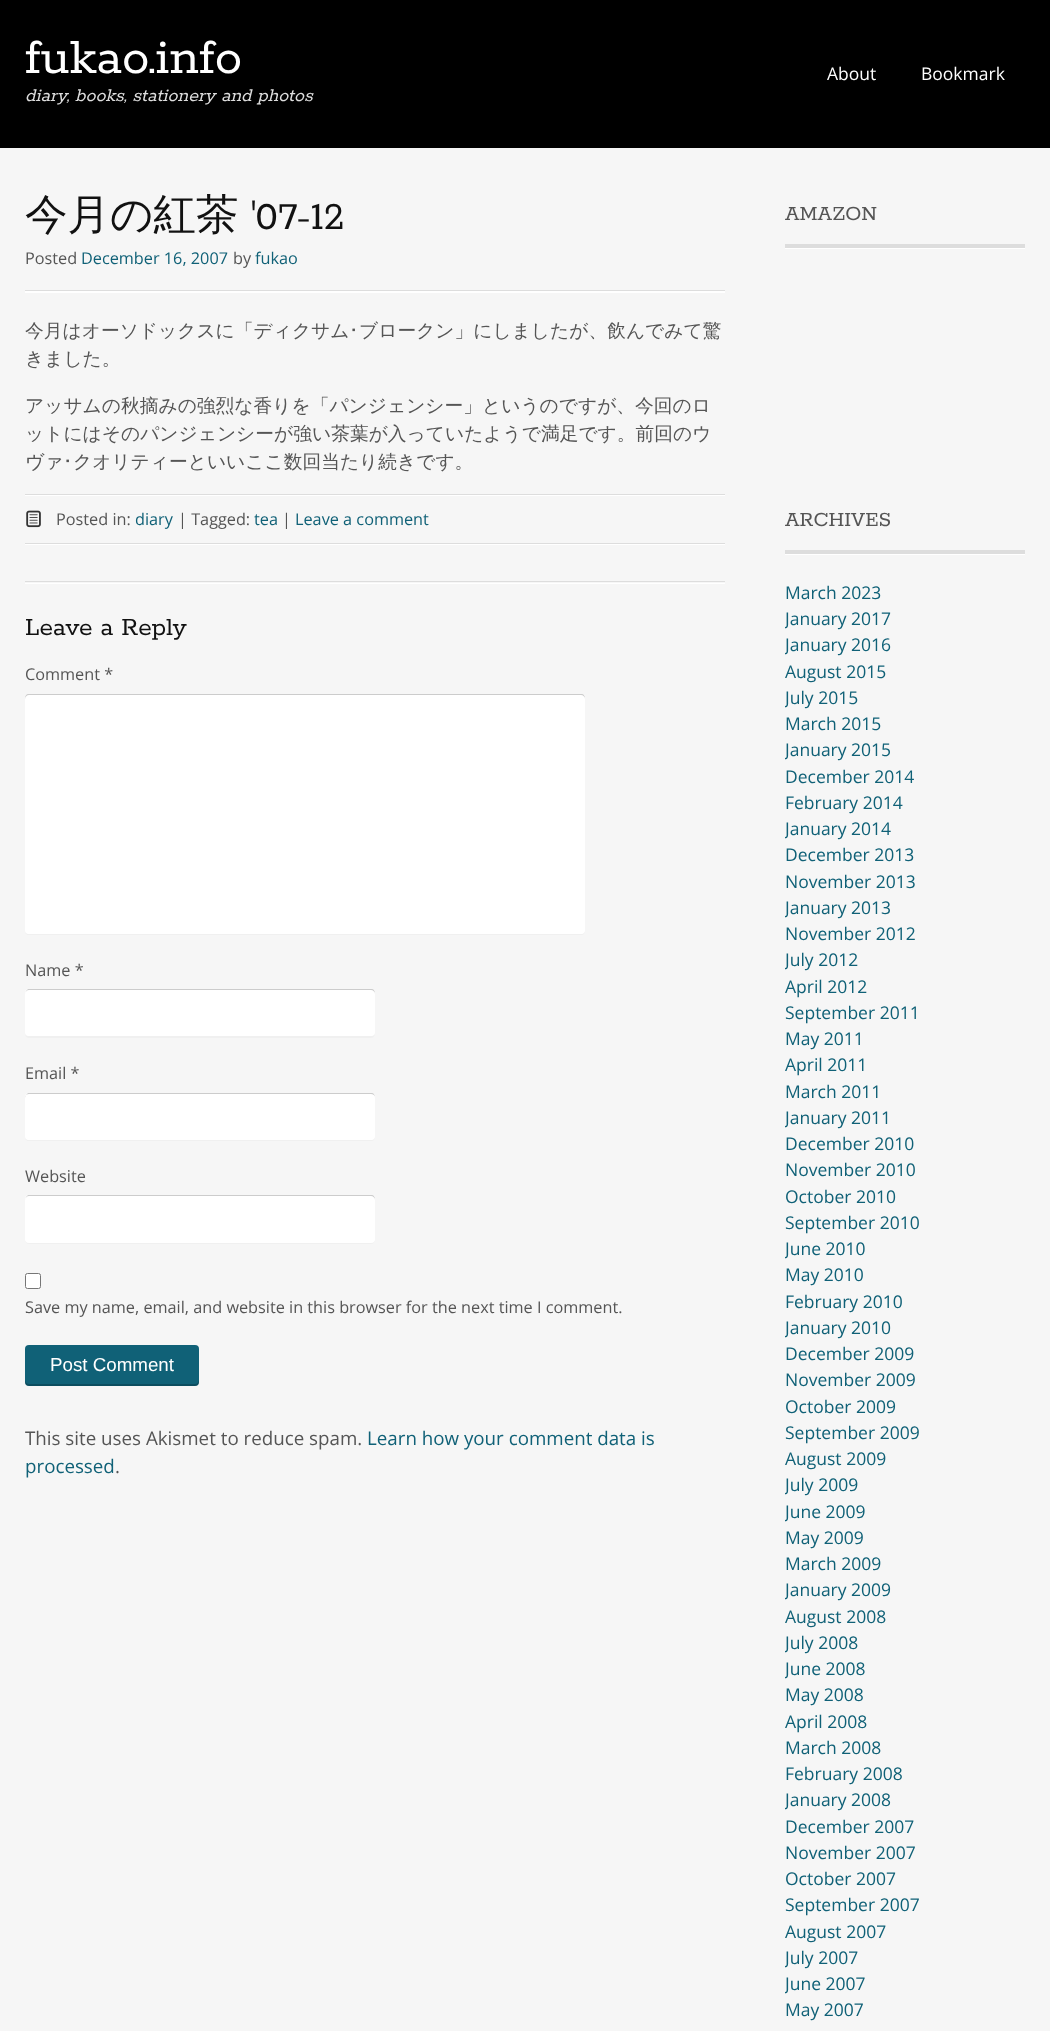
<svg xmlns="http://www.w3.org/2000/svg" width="1050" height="2031">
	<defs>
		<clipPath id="clip1"><rect x="785" y="198" width="240" height="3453" /></clipPath>
	</defs>
	<rect width="100%" height="100%" fill="#F6F6F6" />
	<rect x="0" y="0" width="1050" height="148" fill="#000000" />
	<text x="25" y="73" font-family="Rokkitt" font-size="55" fill="#FFFFFF">fukao.info</text>
	<text x="25" y="101" font-family="Rokkitt" font-size="20" font-style="italic" fill="#DDDDDD">diary, books, stationery and photos</text>
	<g font-family="Open Sans" font-size="17.5" fill="#FFFFFF">
		<text x="827" y="80">About</text>
		<text x="921" y="80">Bookmark</text>
	</g>
	<rect x="25" y="291" width="700" height="2" fill="#FFFFFF" />
	<rect x="25" y="290" width="700" height="1" fill="#DDDDDD" />
	<text x="25" y="229" font-family="WenQuanYi Zen Hei" font-size="42.5" font-weight="500" fill="#111111">今月の紅茶</text>
	<text x="251" y="229" font-family="Rokkitt" font-size="42.5" fill="#111111">'07-12</text>
	<text x="25" y="264" font-family="Open Sans" font-size="16.25" fill="#555555">Posted</text>
	<text x="81" y="264" font-family="Open Sans" font-size="16.25" fill="#106177">December 16, 2007</text>
	<text x="233" y="264" font-family="Open Sans" font-size="16.25" fill="#555555">by</text>
	<text x="255" y="264" font-family="Open Sans" font-size="16.25" fill="#106177">fukao</text>
	<text x="25" y="337" font-family="WenQuanYi Zen Hei" font-size="18.75" font-weight="500" fill="#555555">今月はオーソドックスに「ディクサム</text>
	<text x="349" y="337" font-family="IPAGothic" font-size="18.75" fill="#555555">･</text>
	<g font-family="WenQuanYi Zen Hei" font-size="18.75" font-weight="500" fill="#555555">
		<text x="359" y="337">ブロークン」にしましたが、飲んでみて驚</text>
		<text x="25" y="365">きました。</text>
		<text x="25" y="412">アッサムの秋摘みの強烈な香りを「パンジェンシー」というのですが、今回のロ</text>
		<text x="25" y="440">ットにはそのパンジェンシーが強い茶葉が入っていたようで満足です。前回のウ</text>
		<text x="25" y="468">ヴァ</text>
	</g>
	<text x="63" y="468" font-family="IPAGothic" font-size="18.75" fill="#555555">･</text>
	<text x="73" y="468" font-family="WenQuanYi Zen Hei" font-size="18.75" font-weight="500" fill="#555555">クオリティーといいここ数回当たり続きです。</text>
	<rect x="25" y="495" width="700" height="1" fill="#FFFFFF" />
	<rect x="25" y="494" width="700" height="1" fill="#DDDDDD" />
	<image x="26" y="510" width="15" height="18" href="assets/img1.png" />
	<text x="56" y="525" font-family="Open Sans" font-size="16.25" fill="#555555">Posted in:</text>
	<text x="135" y="525" font-family="Open Sans" font-size="16.25" fill="#106177">diary</text>
	<text x="178" y="525" font-family="Open Sans" font-size="16.25" fill="#555555">| Tagged:</text>
	<text x="254" y="525" font-family="Open Sans" font-size="16.25" fill="#106177">tea</text>
	<text x="282" y="525" font-family="Open Sans" font-size="16.25" fill="#555555">|</text>
	<text x="295" y="525" font-family="Open Sans" font-size="16.25" fill="#106177">Leave a comment</text>
	<rect x="25" y="544" width="700" height="1" fill="#FFFFFF" />
	<rect x="25" y="543" width="700" height="1" fill="#DDDDDD" />
	<rect x="25" y="583" width="700" height="1" fill="#FFFFFF" />
	<rect x="25" y="581" width="700" height="1" fill="#DDDDDD" />
	<text x="25" y="635" font-family="Rokkitt" font-size="27.5" fill="#111111">Leave a Reply</text>
	<text x="25" y="680" font-family="Open Sans" font-size="16.25" fill="#555555">Comment *</text>
	<path d="M25 930C25 933 26 935 29 935H581C584 935 585 933 585 930C585 932 583 934 581 934H29C27 934 25 932 25 930Z" fill="#F0F0F0" />
	<rect x="25" y="694" width="560" height="240" rx="4" fill="#FFFFFF" />
	<path d="M29 695H581C583 695 585 697 585 699C585 696 584 694 581 694H29C26 694 25 696 25 699C25 697 27 695 29 695Z" fill="#000000" fill-opacity="0.2" />
	<text x="25" y="976" font-family="Open Sans" font-size="16.25" fill="#555555">Name *</text>
	<path d="M25 1032C25 1035 26 1038 29 1038H371C374 1038 375 1035 375 1032C375 1035 373 1036 371 1036H29C27 1036 25 1035 25 1032Z" fill="#F0F0F0" />
	<rect x="25" y="989" width="350" height="47" rx="4" fill="#FFFFFF" />
	<path d="M29 990H371C373 990 375 992 375 994C375 991 374 989 371 989H28L26 991L25 994C25 992 27 990 29 990Z" fill="#000000" fill-opacity="0.2" />
	<text x="25" y="1079" font-family="Open Sans" font-size="16.25" fill="#555555">Email *</text>
	<path d="M25 1136C25 1139 26 1141 29 1141H371C374 1141 375 1139 375 1136C375 1138 373 1140 371 1140H29C27 1140 25 1138 25 1136Z" fill="#F0F0F0" />
	<rect x="25" y="1093" width="350" height="47" rx="4" fill="#FFFFFF" />
	<path d="M29 1094H371C373 1094 375 1095 375 1098C375 1095 374 1093 371 1093H28L26 1095L25 1098C25 1095 27 1094 29 1094Z" fill="#000000" fill-opacity="0.2" />
	<text x="25" y="1182" font-family="Open Sans" font-size="16.25" fill="#555555">Website</text>
	<path d="M25 1239V1240C25 1242 27 1244 29 1244H371C373 1244 375 1242 375 1240V1239C375 1241 373 1242 371 1242H29C27 1242 25 1241 25 1239Z" fill="#F0F0F0" />
	<rect x="25" y="1195" width="350" height="48" rx="4" fill="#FFFFFF" />
	<path d="M29 1196H371C373 1196 375 1198 375 1200C375 1197 374 1195 371 1195H28L26 1197L25 1200C25 1198 27 1196 29 1196Z" fill="#000000" fill-opacity="0.2" />
	<rect x="25.5" y="1273.5" width="15" height="15" rx="2" fill="#FFFFFF" stroke="#767676" />
	<text x="25" y="1313" font-family="Open Sans" font-size="16.25" fill="#555555">Save my name, email, and website in this browser for the next time I comment.</text>
	<rect x="25" y="1345" width="174" height="41" rx="4" fill="#106177" />
	<path d="M25 1380V1382C25 1384 27 1386 29 1386H195C197 1386 199 1384 199 1382V1380C199 1382 197 1384 195 1384H29C27 1384 25 1382 25 1380Z" fill="#000000" fill-opacity="0.2" />
	<text x="50" y="1371" font-family="Liberation Sans" font-size="18.75" fill="#FFFFFF">Post Comment</text>
	<text x="25" y="1445" font-family="Open Sans" font-size="18.75" fill="#555555">This site uses Akismet to reduce spam.</text>
	<g font-family="Open Sans" font-size="18.75" fill="#106177">
		<text x="367" y="1445">Learn how your comment data is</text>
		<text x="25" y="1473">processed</text>
	</g>
	<text x="115" y="1473" font-family="Open Sans" font-size="18.75" fill="#555555">.</text>
	<rect x="785" y="248" width="240" height="1" fill="#FFFFFF" />
	<rect x="785" y="244" width="240" height="4" fill="#DDDDDD" />
	<text x="785" y="220" font-family="Rokkitt" font-size="22.5" fill="#555555">AMAZON</text>
	<rect x="785" y="554" width="240" height="1" fill="#FFFFFF" />
	<rect x="785" y="550" width="240" height="4" fill="#DDDDDD" />
	<text x="785" y="526" font-family="Rokkitt" font-size="22.5" fill="#555555">ARCHIVES</text>
	<text x="785" y="599" font-family="Open Sans" font-size="17.5" fill="#106177">March 2023</text>
	<g clip-path="url(#clip1)">
		<g font-family="Open Sans" font-size="17.5" fill="#106177">
			<text x="785" y="625">January 2017</text>
			<text x="785" y="651">January 2016</text>
		</g>
	</g>
	<text x="785" y="678" font-family="Open Sans" font-size="17.5" fill="#106177">August 2015</text>
	<g clip-path="url(#clip1)">
		<text x="785" y="704" font-family="Open Sans" font-size="17.5" fill="#106177">July 2015</text>
	</g>
	<text x="785" y="730" font-family="Open Sans" font-size="17.5" fill="#106177">March 2015</text>
	<g clip-path="url(#clip1)">
		<text x="785" y="756" font-family="Open Sans" font-size="17.5" fill="#106177">January 2015</text>
	</g>
	<g font-family="Open Sans" font-size="17.5" fill="#106177">
		<text x="785" y="783">December 2014</text>
		<text x="785" y="809">February 2014</text>
	</g>
	<g clip-path="url(#clip1)">
		<text x="785" y="835" font-family="Open Sans" font-size="17.5" fill="#106177">January 2014</text>
	</g>
	<g font-family="Open Sans" font-size="17.5" fill="#106177">
		<text x="785" y="861">December 2013</text>
		<text x="785" y="888">November 2013</text>
	</g>
	<g clip-path="url(#clip1)">
		<text x="785" y="914" font-family="Open Sans" font-size="17.5" fill="#106177">January 2013</text>
	</g>
	<text x="785" y="940" font-family="Open Sans" font-size="17.5" fill="#106177">November 2012</text>
	<g clip-path="url(#clip1)">
		<text x="785" y="966" font-family="Open Sans" font-size="17.5" fill="#106177">July 2012</text>
	</g>
	<g font-family="Open Sans" font-size="17.5" fill="#106177">
		<text x="785" y="993">April 2012</text>
		<text x="785" y="1019">September 2011</text>
		<text x="785" y="1045">May 2011</text>
		<text x="785" y="1071">April 2011</text>
		<text x="785" y="1098">March 2011</text>
	</g>
	<g clip-path="url(#clip1)">
		<text x="785" y="1124" font-family="Open Sans" font-size="17.5" fill="#106177">January 2011</text>
	</g>
	<g font-family="Open Sans" font-size="17.5" fill="#106177">
		<text x="785" y="1150">December 2010</text>
		<text x="785" y="1176">November 2010</text>
		<text x="785" y="1203">October 2010</text>
		<text x="785" y="1229">September 2010</text>
	</g>
	<g clip-path="url(#clip1)">
		<text x="785" y="1255" font-family="Open Sans" font-size="17.5" fill="#106177">June 2010</text>
	</g>
	<g font-family="Open Sans" font-size="17.5" fill="#106177">
		<text x="785" y="1281">May 2010</text>
		<text x="785" y="1308">February 2010</text>
	</g>
	<g clip-path="url(#clip1)">
		<text x="785" y="1334" font-family="Open Sans" font-size="17.5" fill="#106177">January 2010</text>
	</g>
	<g font-family="Open Sans" font-size="17.5" fill="#106177">
		<text x="785" y="1360">December 2009</text>
		<text x="785" y="1386">November 2009</text>
		<text x="785" y="1413">October 2009</text>
		<text x="785" y="1439">September 2009</text>
		<text x="785" y="1465">August 2009</text>
	</g>
	<g clip-path="url(#clip1)">
		<g font-family="Open Sans" font-size="17.5" fill="#106177">
			<text x="785" y="1491">July 2009</text>
			<text x="785" y="1518">June 2009</text>
		</g>
	</g>
	<g font-family="Open Sans" font-size="17.5" fill="#106177">
		<text x="785" y="1544">May 2009</text>
		<text x="785" y="1570">March 2009</text>
	</g>
	<g clip-path="url(#clip1)">
		<text x="785" y="1596" font-family="Open Sans" font-size="17.5" fill="#106177">January 2009</text>
	</g>
	<text x="785" y="1623" font-family="Open Sans" font-size="17.5" fill="#106177">August 2008</text>
	<g clip-path="url(#clip1)">
		<g font-family="Open Sans" font-size="17.5" fill="#106177">
			<text x="785" y="1649">July 2008</text>
			<text x="785" y="1675">June 2008</text>
		</g>
	</g>
	<g font-family="Open Sans" font-size="17.5" fill="#106177">
		<text x="785" y="1701">May 2008</text>
		<text x="785" y="1728">April 2008</text>
		<text x="785" y="1754">March 2008</text>
		<text x="785" y="1780">February 2008</text>
	</g>
	<g clip-path="url(#clip1)">
		<text x="785" y="1806" font-family="Open Sans" font-size="17.5" fill="#106177">January 2008</text>
	</g>
	<g font-family="Open Sans" font-size="17.5" fill="#106177">
		<text x="785" y="1833">December 2007</text>
		<text x="785" y="1859">November 2007</text>
		<text x="785" y="1885">October 2007</text>
		<text x="785" y="1911">September 2007</text>
		<text x="785" y="1938">August 2007</text>
	</g>
	<g clip-path="url(#clip1)">
		<g font-family="Open Sans" font-size="17.5" fill="#106177">
			<text x="785" y="1964">July 2007</text>
			<text x="785" y="1990">June 2007</text>
		</g>
	</g>
	<text x="785" y="2016" font-family="Open Sans" font-size="17.5" fill="#106177">May 2007</text>
</svg>
